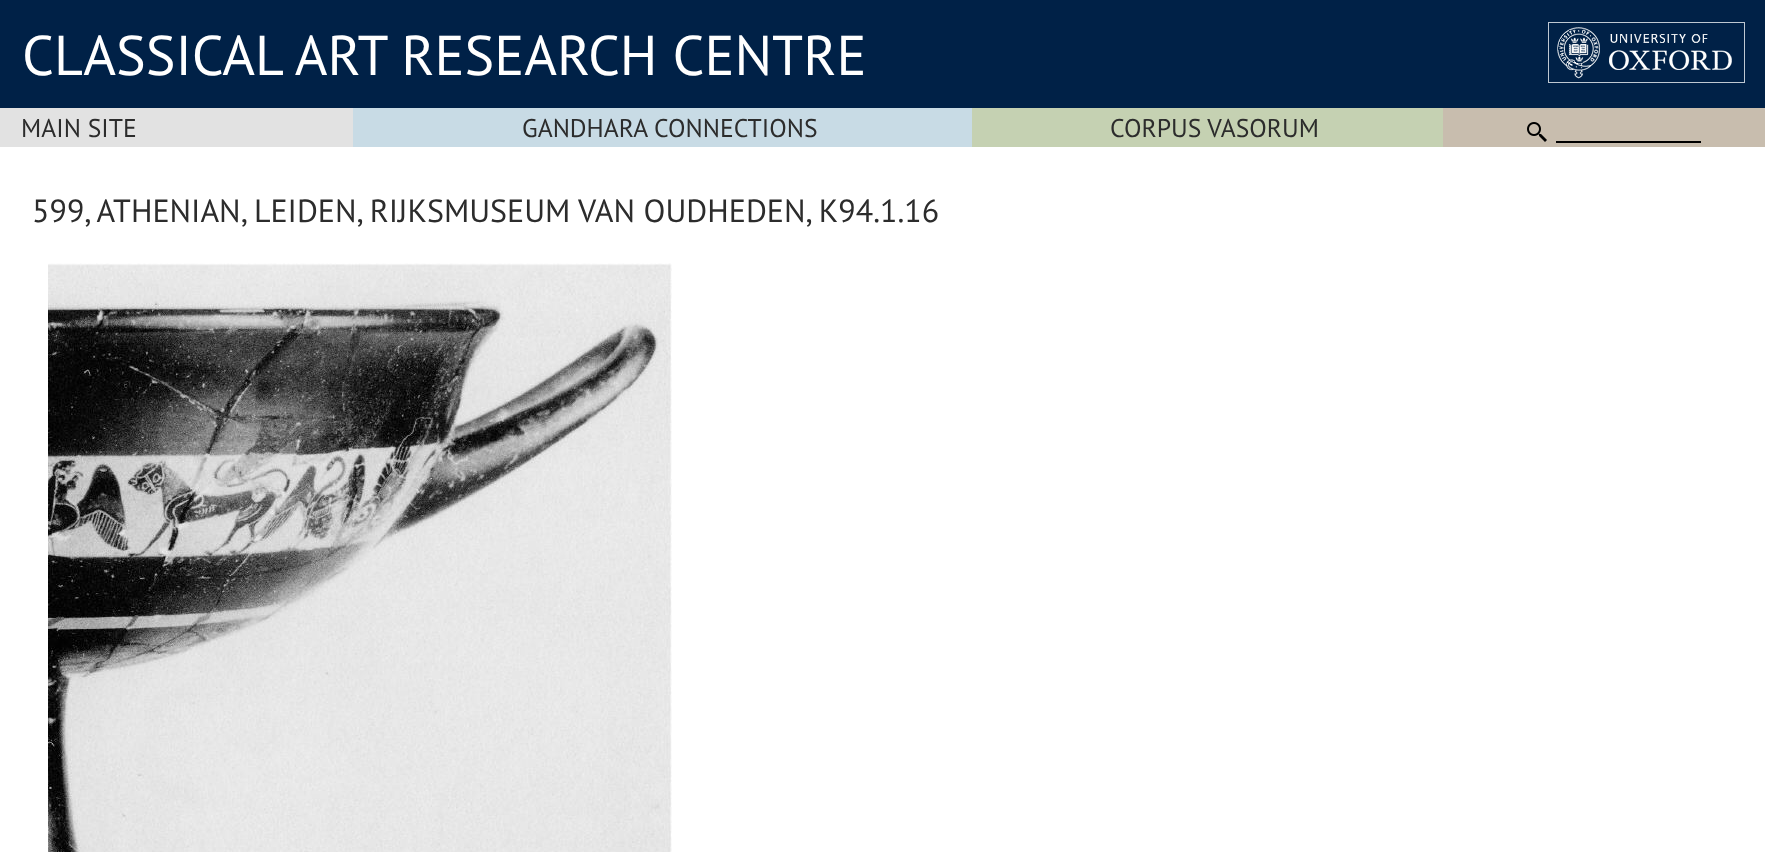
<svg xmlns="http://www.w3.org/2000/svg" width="1765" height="852">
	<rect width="100%" height="100%" fill="#FFFFFF" />
	<rect x="0" y="0" width="1765" height="108" fill="#002147" />
	<text x="22" y="75" font-family="PT Sans" font-size="56" fill="#FFFFFF">CLASSICAL ART RESEARCH CENTRE</text>
	<image x="1548" y="22" width="197" height="61" href="assets/img1.png" />
	<rect x="0" y="108" width="353" height="39" fill="#E2E2E2" />
	<text x="21" y="137" font-family="PT Sans" font-size="25.6" fill="#2C2C2C">MAIN SITE</text>
	<rect x="353" y="108" width="619" height="39" fill="#C8DBE5" />
	<text x="522" y="137" font-family="PT Sans" font-size="25.6" fill="#2C2C2C">GANDHARA CONNECTIONS</text>
	<rect x="972" y="108" width="471" height="39" fill="#C5D1B2" />
	<text x="1110" y="137" font-family="PT Sans" font-size="25.6" fill="#2C2C2C">CORPUS VASORUM</text>
	<rect x="1443" y="108" width="322" height="39" fill="#C8BDAE" />
	<image x="1527" y="122" width="20" height="20" href="assets/img2.png" />
	<rect x="1556" y="141" width="145" height="2" fill="#000000" />
	<text x="32" y="222" font-family="PT Sans" font-size="32" fill="#2C2C2C">599, ATHENIAN, LEIDEN, RIJKSMUSEUM VAN OUDHEDEN, K94.1.16</text>
	<image x="48" y="263" width="624" height="576" href="assets/img3.png" />
	<image x="48" y="839" width="624" height="13" href="assets/img4.png" />
</svg>
